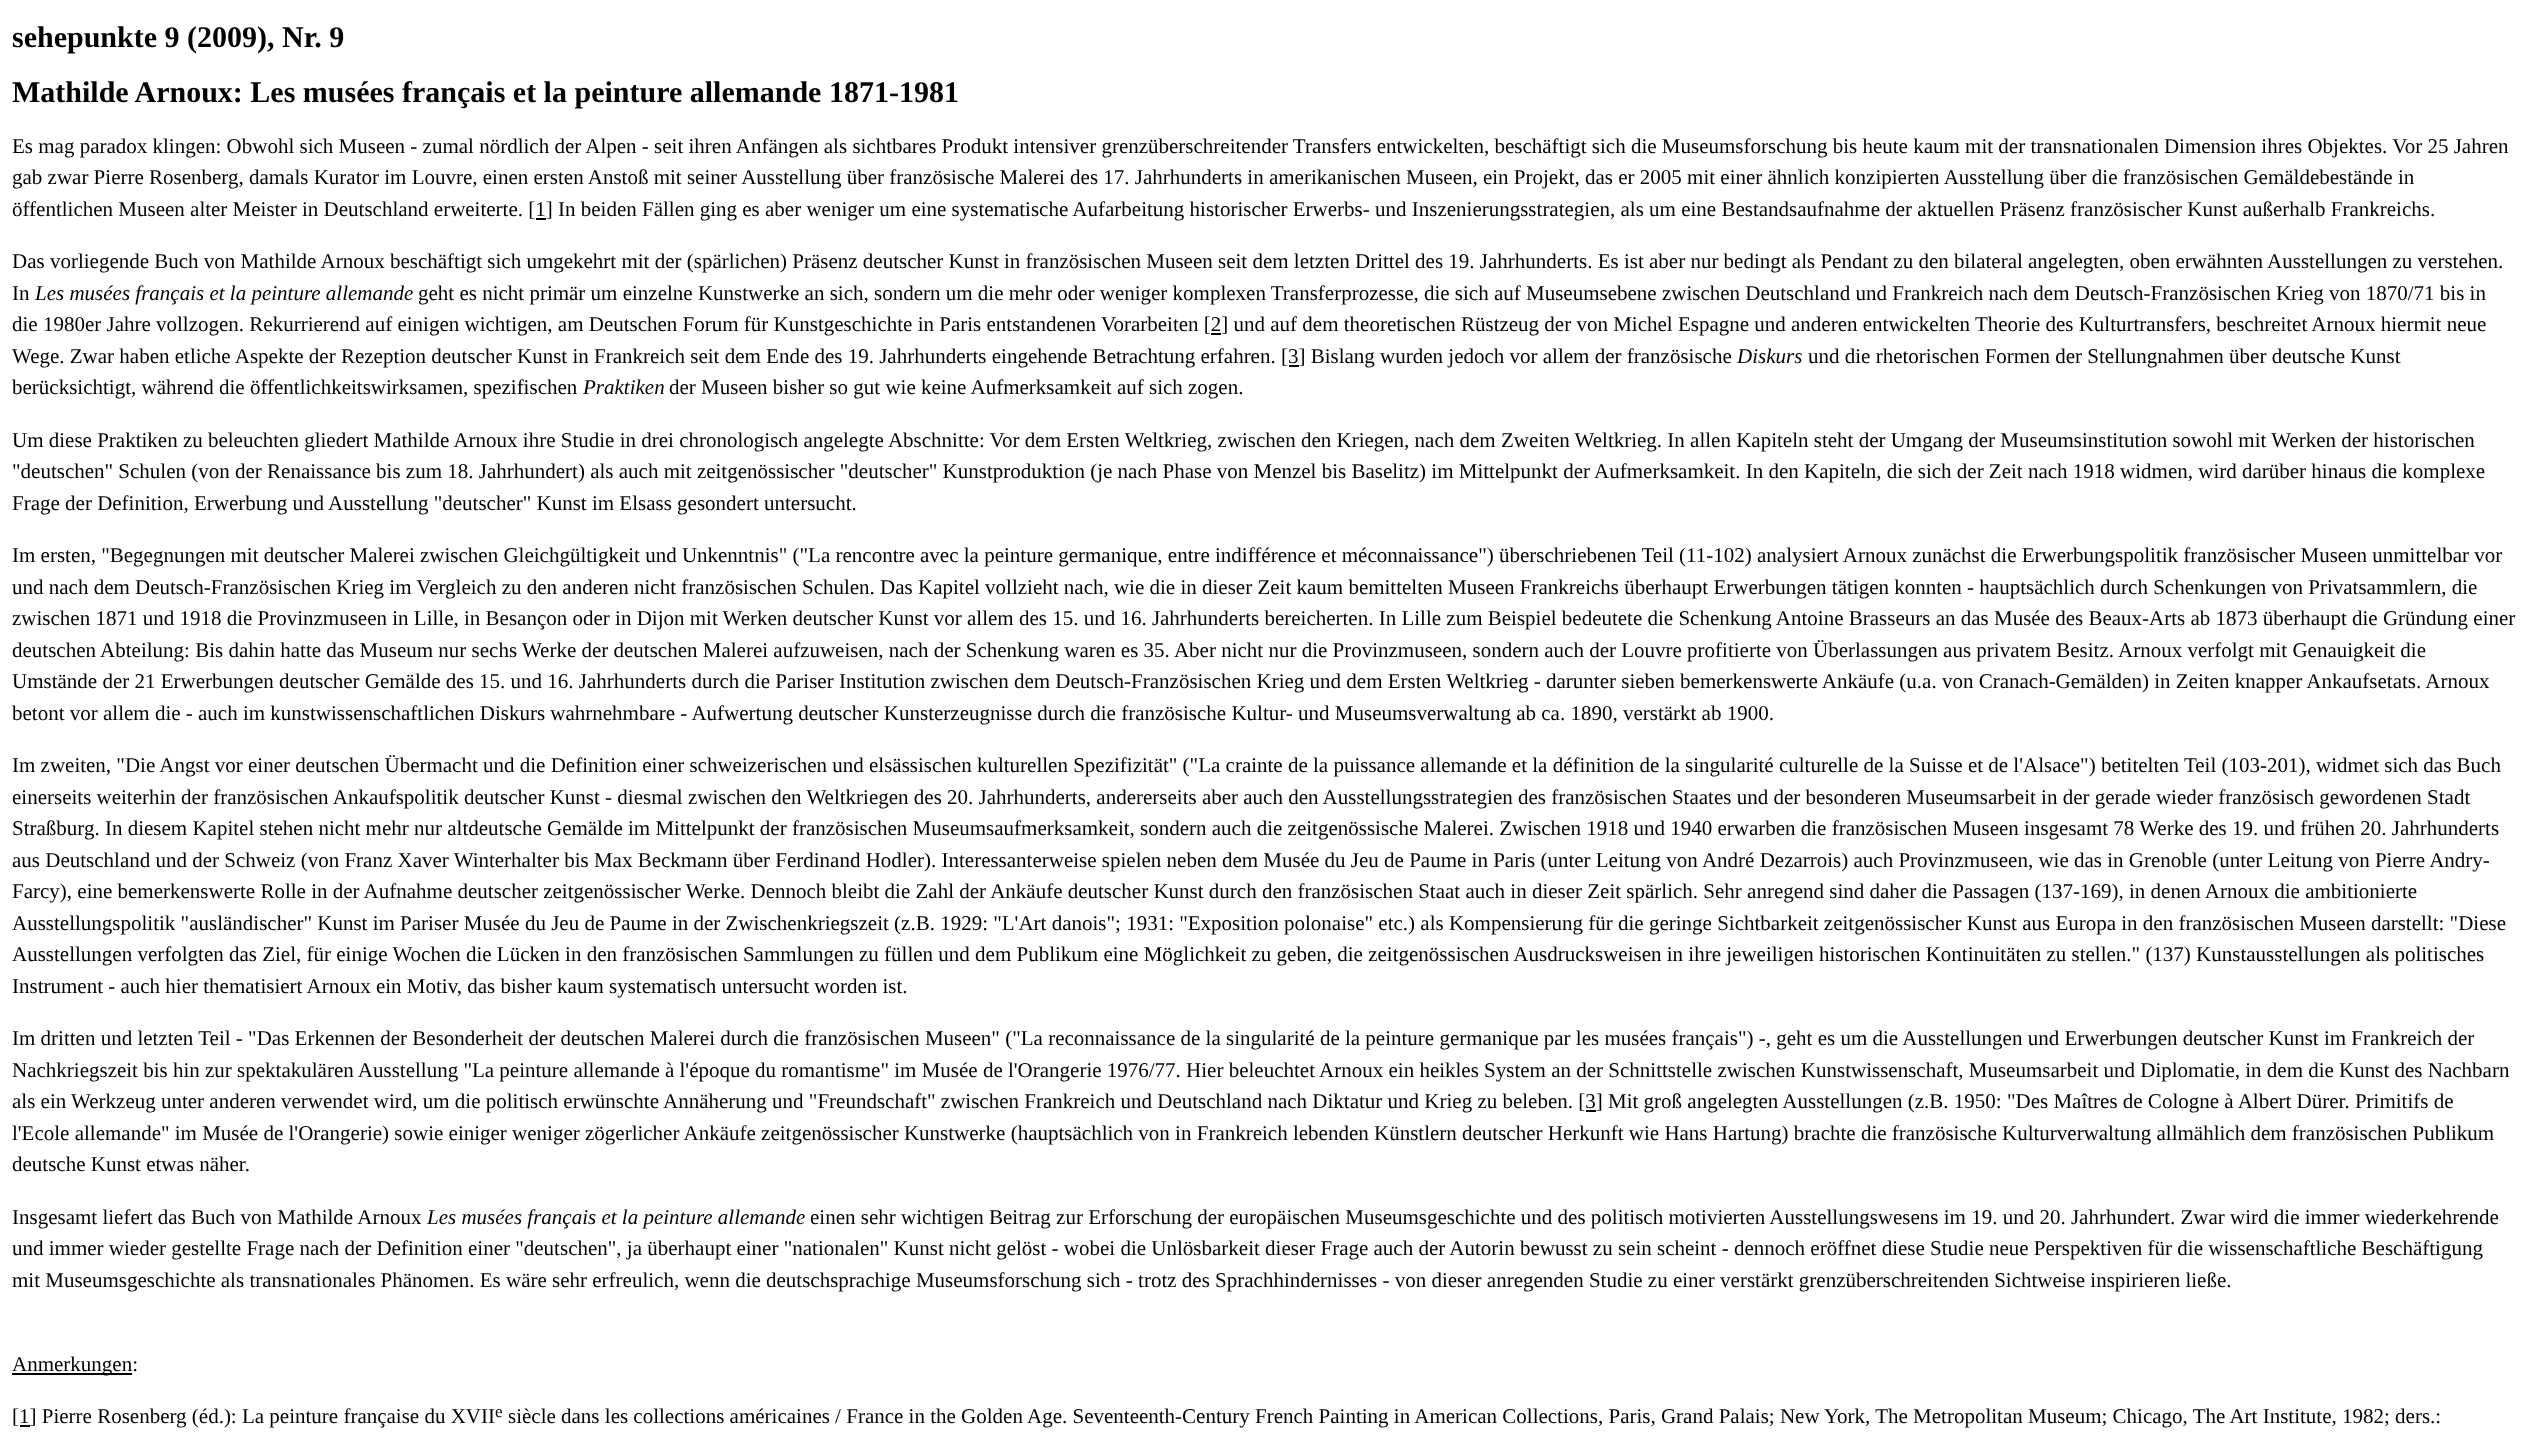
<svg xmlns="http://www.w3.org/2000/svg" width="2527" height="1440">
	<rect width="100%" height="100%" fill="#FFFFFF" />
	<g font-family="Liberation Serif" font-size="30" font-weight="700" fill="#000000">
		<text x="12" y="47">sehepunkte 9 (2009), Nr. 9</text>
		<text x="12" y="102">Mathilde Arnoux: Les musées français et la peinture allemande 1871-1981</text>
	</g>
	<g font-family="Liberation Serif" font-size="21" fill="#000000">
		<text x="12" y="153">Es mag paradox klingen: Obwohl sich Museen - zumal nördlich der Alpen - seit ihren Anfängen als sichtbares Produkt intensiver grenzüberschreitender Transfers entwickelten, beschäftigt sich die Museumsforschung bis heute kaum mit der transnationalen Dimension ihres Objektes. Vor 25 Jahren</text>
		<text x="12" y="184">gab zwar Pierre Rosenberg, damals Kurator im Louvre, einen ersten Anstoß mit seiner Ausstellung über französische Malerei des 17. Jahrhunderts in amerikanischen Museen, ein Projekt, das er 2005 mit einer ähnlich konzipierten Ausstellung über die französischen Gemäldebestände in</text>
		<text x="12" y="216">öffentlichen Museen alter Meister in Deutschland erweiterte. [1] In beiden Fällen ging es aber weniger um eine systematische Aufarbeitung historischer Erwerbs- und Inszenierungsstrategien, als um eine Bestandsaufnahme der aktuellen Präsenz französischer Kunst außerhalb Frankreichs.</text>
	</g>
	<rect x="536" y="218" width="10" height="2" fill="#000000" />
	<g font-family="Liberation Serif" font-size="21" fill="#000000">
		<text x="12" y="268">Das vorliegende Buch von Mathilde Arnoux beschäftigt sich umgekehrt mit der (spärlichen) Präsenz deutscher Kunst in französischen Museen seit dem letzten Drittel des 19. Jahrhunderts. Es ist aber nur bedingt als Pendant zu den bilateral angelegten, oben erwähnten Ausstellungen zu verstehen.</text>
		<text x="12" y="300">In</text>
	</g>
	<text x="35" y="300" font-family="Liberation Serif" font-size="21" font-style="italic" fill="#000000">Les musées français et la peinture allemande</text>
	<g font-family="Liberation Serif" font-size="21" fill="#000000">
		<text x="418" y="300">geht es nicht primär um einzelne Kunstwerke an sich, sondern um die mehr oder weniger komplexen Transferprozesse, die sich auf Museumsebene zwischen Deutschland und Frankreich nach dem Deutsch-Französischen Krieg von 1870/71 bis in</text>
		<text x="12" y="331">die 1980er Jahre vollzogen. Rekurrierend auf einigen wichtigen, am Deutschen Forum für Kunstgeschichte in Paris entstandenen Vorarbeiten [2] und auf dem theoretischen Rüstzeug der von Michel Espagne und anderen entwickelten Theorie des Kulturtransfers, beschreitet Arnoux hiermit neue</text>
	</g>
	<rect x="1211" y="333" width="10" height="2" fill="#000000" />
	<text x="12" y="363" font-family="Liberation Serif" font-size="21" fill="#000000">Wege. Zwar haben etliche Aspekte der Rezeption deutscher Kunst in Frankreich seit dem Ende des 19. Jahrhunderts eingehende Betrachtung erfahren. [3] Bislang wurden jedoch vor allem der französische</text>
	<text x="1737" y="363" font-family="Liberation Serif" font-size="21" font-style="italic" fill="#000000">Diskurs</text>
	<text x="1808" y="363" font-family="Liberation Serif" font-size="21" fill="#000000">und die rhetorischen Formen der Stellungnahmen über deutsche Kunst</text>
	<rect x="1289" y="365" width="10" height="2" fill="#000000" />
	<text x="12" y="394" font-family="Liberation Serif" font-size="21" fill="#000000">berücksichtigt, während die öffentlichkeitswirksamen, spezifischen</text>
	<text x="583" y="394" font-family="Liberation Serif" font-size="21" font-style="italic" fill="#000000">Praktiken</text>
	<g font-family="Liberation Serif" font-size="21" fill="#000000">
		<text x="669" y="394">der Museen bisher so gut wie keine Aufmerksamkeit auf sich zogen.</text>
		<text x="12" y="447">Um diese Praktiken zu beleuchten gliedert Mathilde Arnoux ihre Studie in drei chronologisch angelegte Abschnitte: Vor dem Ersten Weltkrieg, zwischen den Kriegen, nach dem Zweiten Weltkrieg. In allen Kapiteln steht der Umgang der Museumsinstitution sowohl mit Werken der historischen</text>
		<text x="12" y="478">"deutschen" Schulen (von der Renaissance bis zum 18. Jahrhundert) als auch mit zeitgenössischer "deutscher" Kunstproduktion (je nach Phase von Menzel bis Baselitz) im Mittelpunkt der Aufmerksamkeit. In den Kapiteln, die sich der Zeit nach 1918 widmen, wird darüber hinaus die komplexe</text>
		<text x="12" y="510">Frage der Definition, Erwerbung und Ausstellung "deutscher" Kunst im Elsass gesondert untersucht.</text>
		<text x="12" y="562">Im ersten, "Begegnungen mit deutscher Malerei zwischen Gleichgültigkeit und Unkenntnis" ("La rencontre avec la peinture germanique, entre indifférence et méconnaissance") überschriebenen Teil (11-102) analysiert Arnoux zunächst die Erwerbungspolitik französischer Museen unmittelbar vor</text>
		<text x="12" y="594">und nach dem Deutsch-Französischen Krieg im Vergleich zu den anderen nicht französischen Schulen. Das Kapitel vollzieht nach, wie die in dieser Zeit kaum bemittelten Museen Frankreichs überhaupt Erwerbungen tätigen konnten - hauptsächlich durch Schenkungen von Privatsammlern, die</text>
		<text x="12" y="625">zwischen 1871 und 1918 die Provinzmuseen in Lille, in Besançon oder in Dijon mit Werken deutscher Kunst vor allem des 15. und 16. Jahrhunderts bereicherten. In Lille zum Beispiel bedeutete die Schenkung Antoine Brasseurs an das Musée des Beaux-Arts ab 1873 überhaupt die Gründung einer</text>
		<text x="12" y="657">deutschen Abteilung: Bis dahin hatte das Museum nur sechs Werke der deutschen Malerei aufzuweisen, nach der Schenkung waren es 35. Aber nicht nur die Provinzmuseen, sondern auch der Louvre profitierte von Überlassungen aus privatem Besitz. Arnoux verfolgt mit Genauigkeit die</text>
		<text x="12" y="688">Umstände der 21 Erwerbungen deutscher Gemälde des 15. und 16. Jahrhunderts durch die Pariser Institution zwischen dem Deutsch-Französischen Krieg und dem Ersten Weltkrieg - darunter sieben bemerkenswerte Ankäufe (u.a. von Cranach-Gemälden) in Zeiten knapper Ankaufsetats. Arnoux</text>
		<text x="12" y="720">betont vor allem die - auch im kunstwissenschaftlichen Diskurs wahrnehmbare - Aufwertung deutscher Kunsterzeugnisse durch die französische Kultur- und Museumsverwaltung ab ca. 1890, verstärkt ab 1900.</text>
		<text x="12" y="772">Im zweiten, "Die Angst vor einer deutschen Übermacht und die Definition einer schweizerischen und elsässischen kulturellen Spezifizität" ("La crainte de la puissance allemande et la définition de la singularité culturelle de la Suisse et de l'Alsace") betitelten Teil (103-201), widmet sich das Buch</text>
		<text x="12" y="804">einerseits weiterhin der französischen Ankaufspolitik deutscher Kunst - diesmal zwischen den Weltkriegen des 20. Jahrhunderts, andererseits aber auch den Ausstellungsstrategien des französischen Staates und der besonderen Museumsarbeit in der gerade wieder französisch gewordenen Stadt</text>
		<text x="12" y="835">Straßburg. In diesem Kapitel stehen nicht mehr nur altdeutsche Gemälde im Mittelpunkt der französischen Museumsaufmerksamkeit, sondern auch die zeitgenössische Malerei. Zwischen 1918 und 1940 erwarben die französischen Museen insgesamt 78 Werke des 19. und frühen 20. Jahrhunderts</text>
		<text x="12" y="867">aus Deutschland und der Schweiz (von Franz Xaver Winterhalter bis Max Beckmann über Ferdinand Hodler). Interessanterweise spielen neben dem Musée du Jeu de Paume in Paris (unter Leitung von André Dezarrois) auch Provinzmuseen, wie das in Grenoble (unter Leitung von Pierre Andry-</text>
		<text x="12" y="898">Farcy), eine bemerkenswerte Rolle in der Aufnahme deutscher zeitgenössischer Werke. Dennoch bleibt die Zahl der Ankäufe deutscher Kunst durch den französischen Staat auch in dieser Zeit spärlich. Sehr anregend sind daher die Passagen (137-169), in denen Arnoux die ambitionierte</text>
		<text x="12" y="930">Ausstellungspolitik "ausländischer" Kunst im Pariser Musée du Jeu de Paume in der Zwischenkriegszeit (z.B. 1929: "L'Art danois"; 1931: "Exposition polonaise" etc.) als Kompensierung für die geringe Sichtbarkeit zeitgenössischer Kunst aus Europa in den französischen Museen darstellt: "Diese</text>
		<text x="12" y="961">Ausstellungen verfolgten das Ziel, für einige Wochen die Lücken in den französischen Sammlungen zu füllen und dem Publikum eine Möglichkeit zu geben, die zeitgenössischen Ausdrucksweisen in ihre jeweiligen historischen Kontinuitäten zu stellen." (137) Kunstausstellungen als politisches</text>
		<text x="12" y="993">Instrument - auch hier thematisiert Arnoux ein Motiv, das bisher kaum systematisch untersucht worden ist.</text>
		<text x="12" y="1045">Im dritten und letzten Teil - "Das Erkennen der Besonderheit der deutschen Malerei durch die französischen Museen" ("La reconnaissance de la singularité de la peinture germanique par les musées français") -, geht es um die Ausstellungen und Erwerbungen deutscher Kunst im Frankreich der</text>
		<text x="12" y="1077">Nachkriegszeit bis hin zur spektakulären Ausstellung "La peinture allemande à l'époque du romantisme" im Musée de l'Orangerie 1976/77. Hier beleuchtet Arnoux ein heikles System an der Schnittstelle zwischen Kunstwissenschaft, Museumsarbeit und Diplomatie, in dem die Kunst des Nachbarn</text>
		<text x="12" y="1108">als ein Werkzeug unter anderen verwendet wird, um die politisch erwünschte Annäherung und "Freundschaft" zwischen Frankreich und Deutschland nach Diktatur und Krieg zu beleben. [3] Mit groß angelegten Ausstellungen (z.B. 1950: "Des Maîtres de Cologne à Albert Dürer. Primitifs de</text>
	</g>
	<rect x="1586" y="1110" width="10" height="2" fill="#000000" />
	<g font-family="Liberation Serif" font-size="21" fill="#000000">
		<text x="12" y="1140">l'Ecole allemande" im Musée de l'Orangerie) sowie einiger weniger zögerlicher Ankäufe zeitgenössischer Kunstwerke (hauptsächlich von in Frankreich lebenden Künstlern deutscher Herkunft wie Hans Hartung) brachte die französische Kulturverwaltung allmählich dem französischen Publikum</text>
		<text x="12" y="1171">deutsche Kunst etwas näher.</text>
		<text x="12" y="1224">Insgesamt liefert das Buch von Mathilde Arnoux</text>
	</g>
	<text x="427" y="1224" font-family="Liberation Serif" font-size="21" font-style="italic" fill="#000000">Les musées français et la peinture allemande</text>
	<g font-family="Liberation Serif" font-size="21" fill="#000000">
		<text x="810" y="1224">einen sehr wichtigen Beitrag zur Erforschung der europäischen Museumsgeschichte und des politisch motivierten Ausstellungswesens im 19. und 20. Jahrhundert. Zwar wird die immer wiederkehrende</text>
		<text x="12" y="1255">und immer wieder gestellte Frage nach der Definition einer "deutschen", ja überhaupt einer "nationalen" Kunst nicht gelöst - wobei die Unlösbarkeit dieser Frage auch der Autorin bewusst zu sein scheint - dennoch eröffnet diese Studie neue Perspektiven für die wissenschaftliche Beschäftigung</text>
		<text x="12" y="1287">mit Museumsgeschichte als transnationales Phänomen. Es wäre sehr erfreulich, wenn die deutschsprachige Museumsforschung sich - trotz des Sprachhindernisses - von dieser anregenden Studie zu einer verstärkt grenzüberschreitenden Sichtweise inspirieren ließe.</text>
	</g>
	<rect x="12" y="1373" width="120" height="2" fill="#000000" />
	<g font-family="Liberation Serif" font-size="21" fill="#000000">
		<text x="12" y="1371">Anmerkungen:</text>
		<text x="12" y="1423">[1] Pierre Rosenberg (éd.): La peinture française du XVII</text>
	</g>
	<text x="495" y="1417" font-family="Liberation Serif" font-size="17" fill="#000000">e</text>
	<text x="508" y="1423" font-family="Liberation Serif" font-size="21" fill="#000000">siècle dans les collections américaines / France in the Golden Age. Seventeenth-Century French Painting in American Collections, Paris, Grand Palais; New York, The Metropolitan Museum; Chicago, The Art Institute, 1982; ders.:</text>
	<rect x="20" y="1425" width="10" height="2" fill="#000000" />
</svg>
